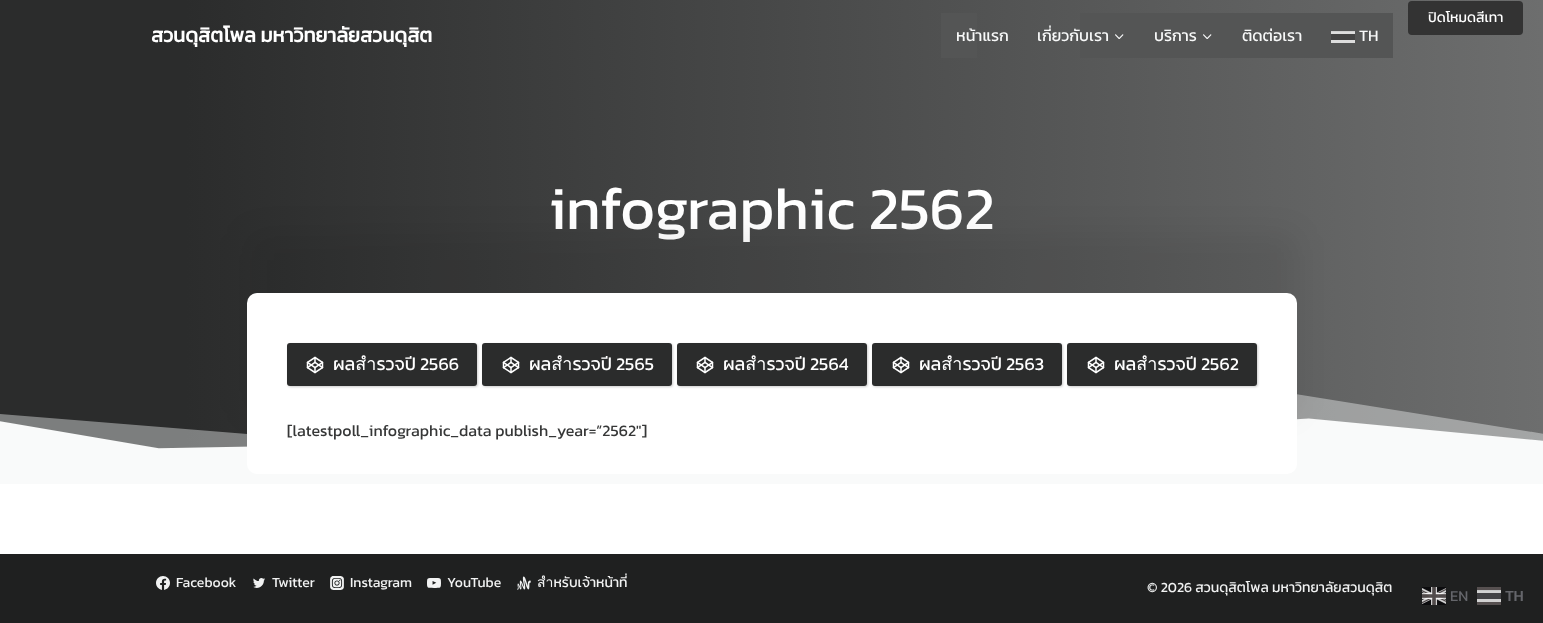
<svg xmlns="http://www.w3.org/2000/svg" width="1543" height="623">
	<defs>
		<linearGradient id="g1" gradientUnits="userSpaceOnUse" x1="0" y1="233" x2="1543" y2="233"><stop offset="0.12" stop-color="#2B2C2C" /><stop offset="1" stop-color="#6D6E6E" /></linearGradient>
	</defs>
	<rect width="100%" height="100%" fill="#FFFFFF" />
	<rect x="0" y="0" width="1543" height="449" fill="url(#g1)" />
	<rect x="1408" y="1" width="115" height="34" rx="4" fill="#333333" />
	<text x="1428" y="22" font-family="Kanit" font-size="14" fill="#FFFFFF">ปิดโหมดสีเทา</text>
	<text x="151" y="42" font-family="Kanit" font-size="20" font-weight="700" fill="#FFFFFF">สวนดุสิตโพล มหาวิทยาลัยสวนดุสิต</text>
	<rect x="941" y="13" width="36" height="45" fill="#545555" />
	<text x="956" y="41" font-family="Kanit" font-size="16" fill="#F8F9F9">หน้าแรก</text>
	<rect x="1080" y="13" width="313" height="45" fill="#545555" />
	<text x="1037" y="41" font-family="Kanit" font-size="16" fill="#F8F9F9">เกี่ยวกับเรา</text>
	<image x="1115" y="34" width="9" height="5" href="assets/img1.png" />
	<text x="1154" y="41" font-family="Kanit" font-size="16" fill="#F8F9F9">บริการ</text>
	<image x="1203" y="34" width="9" height="5" href="assets/img1.png" />
	<text x="1242" y="41" font-family="Kanit" font-size="16" fill="#F8F9F9">ติดต่อเรา</text>
	<image x="1331" y="31" width="24" height="12" href="assets/img2.png" />
	<text x="1359" y="41" font-family="Kanit" font-size="16" fill="#F8F9F9">TH</text>
	<text x="549" y="229" font-family="Kanit" font-size="60" fill="#FFFFFF">infographic 2562</text>
	<image x="0" y="394" width="1543" height="90" href="assets/img3.png" />
	<rect x="247" y="233" width="1050" height="181" rx="10" fill="#000000" fill-opacity="0.07" filter="blur(15px)" />
	<rect x="247" y="293" width="1050" height="181" rx="10" fill="#FFFFFF" />
	<rect x="288" y="344" width="190" height="43" rx="3" fill="#000000" fill-opacity="0.2" filter="blur(1px)" />
	<rect x="287" y="343" width="190" height="43" rx="3" fill="#2B2C2C" />
	<image x="306" y="356" width="18" height="18" href="assets/img4.png" />
	<text x="333" y="370" font-family="Kanit" font-size="18" fill="#FFFFFF">ผลสำรวจปี 2566</text>
	<rect x="483" y="344" width="190" height="43" rx="3" fill="#000000" fill-opacity="0.2" filter="blur(1px)" />
	<rect x="482" y="343" width="190" height="43" rx="3" fill="#2B2C2C" />
	<image x="502" y="356" width="18" height="18" href="assets/img5.png" />
	<text x="529" y="370" font-family="Kanit" font-size="18" fill="#FFFFFF">ผลสำรวจปี 2565</text>
	<rect x="678" y="344" width="190" height="43" rx="3" fill="#000000" fill-opacity="0.2" filter="blur(1px)" />
	<rect x="677" y="343" width="190" height="43" rx="3" fill="#2B2C2C" />
	<image x="696" y="356" width="18" height="18" href="assets/img4.png" />
	<text x="723" y="370" font-family="Kanit" font-size="18" fill="#FFFFFF">ผลสำรวจปี 2564</text>
	<rect x="873" y="344" width="190" height="43" rx="3" fill="#000000" fill-opacity="0.2" filter="blur(1px)" />
	<rect x="872" y="343" width="190" height="43" rx="3" fill="#2B2C2C" />
	<image x="892" y="356" width="18" height="18" href="assets/img4.png" />
	<text x="919" y="370" font-family="Kanit" font-size="18" fill="#FFFFFF">ผลสำรวจปี 2563</text>
	<rect x="1068" y="344" width="190" height="43" rx="3" fill="#000000" fill-opacity="0.2" filter="blur(1px)" />
	<rect x="1067" y="343" width="190" height="43" rx="3" fill="#2B2C2C" />
	<image x="1087" y="356" width="18" height="18" href="assets/img4.png" />
	<text x="1114" y="370" font-family="Kanit" font-size="18" fill="#FFFFFF">ผลสำรวจปี 2562</text>
	<text x="287" y="436" font-family="Kanit" font-size="16" fill="#363737">[latestpoll_infographic_data publish_year=”2562″]</text>
	<rect x="0" y="554" width="1543" height="69" fill="#1F2020" />
	<image x="156" y="576" width="14" height="14" href="assets/img6.png" />
	<text x="176" y="587" font-family="Kanit" font-size="14" fill="#F1F2F2">Facebook</text>
	<image x="253" y="578" width="12" height="10" href="assets/img7.png" />
	<text x="272" y="587" font-family="Kanit" font-size="14" fill="#F1F2F2">Twitter</text>
	<image x="330" y="576" width="14" height="14" href="assets/img8.png" />
	<text x="350" y="587" font-family="Kanit" font-size="14" fill="#F1F2F2">Instagram</text>
	<image x="427" y="578" width="14" height="10" href="assets/img9.png" />
	<text x="447" y="587" font-family="Kanit" font-size="14" fill="#F1F2F2">YouTube</text>
	<image x="517" y="576" width="14" height="14" href="assets/img10.png" />
	<g font-family="Kanit" font-size="14" fill="#F1F2F2">
		<text x="537" y="587">สำหรับเจ้าหน้าที่</text>
		<text x="1147" y="592">© 2026 สวนดุสิตโพล มหาวิทยาลัยสวนดุสิต</text>
	</g>
	<image x="1422" y="587" width="24" height="18" href="assets/img11.png" />
	<text x="1450" y="601" font-family="Kanit" font-size="15" fill="#65666B">EN</text>
	<image x="1477" y="587" width="24" height="18" href="assets/img12.png" />
	<text x="1505" y="601" font-family="Kanit" font-size="15" font-weight="700" fill="#65666B">TH</text>
</svg>
